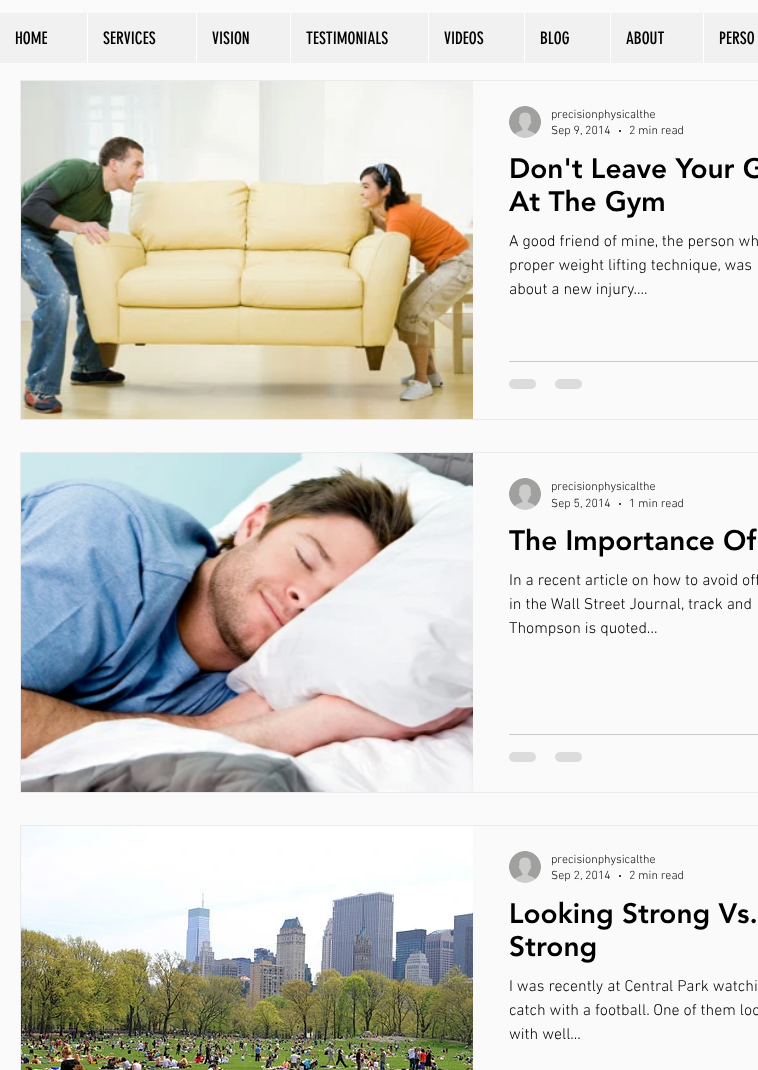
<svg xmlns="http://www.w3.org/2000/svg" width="758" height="1070">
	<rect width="100%" height="100%" fill="#FAFAFA" />
	<rect x="0" y="13" width="758" height="50" fill="#F1F1F1" />
	<text x="15" y="44" font-family="'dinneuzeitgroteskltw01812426'" font-size="17" fill="#000000">HOME</text>
	<rect x="87" y="13" width="1" height="50" fill="#FFFFFF" />
	<text x="103" y="44" font-family="'dinneuzeitgroteskltw01812426'" font-size="17" fill="#000000">SERVICES</text>
	<rect x="196" y="13" width="1" height="50" fill="#FFFFFF" />
	<text x="212" y="44" font-family="'dinneuzeitgroteskltw01812426'" font-size="17" fill="#000000">VISION</text>
	<rect x="290" y="13" width="1" height="50" fill="#FFFFFF" />
	<text x="306" y="44" font-family="'dinneuzeitgroteskltw01812426'" font-size="17" fill="#000000">TESTIMONIALS</text>
	<rect x="428" y="13" width="1" height="50" fill="#FFFFFF" />
	<text x="444" y="44" font-family="'dinneuzeitgroteskltw01812426'" font-size="17" fill="#000000">VIDEOS</text>
	<rect x="524" y="13" width="1" height="50" fill="#FFFFFF" />
	<text x="540" y="44" font-family="'dinneuzeitgroteskltw01812426'" font-size="17" fill="#000000">BLOG</text>
	<rect x="610" y="13" width="1" height="50" fill="#FFFFFF" />
	<text x="626" y="44" font-family="'dinneuzeitgroteskltw01812426'" font-size="17" fill="#000000">ABOUT</text>
	<rect x="703" y="13" width="1" height="50" fill="#FFFFFF" />
	<text x="719" y="44" font-family="'dinneuzeitgroteskltw01812426'" font-size="17" fill="#000000">PERSO</text>
	<rect x="20.5" y="80.5" width="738" height="339" fill="none" stroke="#EBEBEB" />
	<image x="472" y="81" width="1" height="338" href="assets/img2.png" />
	<image x="21" y="81" width="452" height="338" href="assets/img1.png" />
	<image x="509" y="106" width="32" height="32" href="assets/img3.png" />
	<g font-family="'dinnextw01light'" font-size="12" font-weight="300" fill="#000000">
		<text x="551" y="118">precisionphysicalthe</text>
		<text x="551" y="134">Sep 9, 2014</text>
	</g>
	<circle cx="620" cy="131" r="1" fill="#000000" />
	<text x="629" y="134" font-family="'dinnextw01light'" font-size="12" font-weight="300" fill="#000000">2 min read</text>
	<g font-family="'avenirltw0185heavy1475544'" font-size="28" font-weight="900" fill="#000000">
		<text x="509" y="178">Don't Leave Your G</text>
		<text x="509" y="211">At The Gym</text>
	</g>
	<g font-family="'dinnextw01light'" font-size="16" font-weight="300" fill="#000000">
		<text x="509" y="246">A good friend of mine, the person wh</text>
		<text x="509" y="270">proper weight lifting technique, was</text>
		<text x="509" y="294">about a new injury....</text>
	</g>
	<rect x="509" y="361" width="249" height="1" fill="#C8C8C8" />
	<rect x="509" y="379" width="27" height="10" rx="5" fill="#DCDCDC" />
	<rect x="555" y="379" width="27" height="10" rx="5" fill="#DCDCDC" />
	<rect x="20.5" y="452.5" width="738" height="340" fill="none" stroke="#EBEBEB" />
	<image x="21" y="453" width="452" height="339" href="assets/img4.png" />
	<image x="509" y="478" width="32" height="32" href="assets/img3.png" />
	<g font-family="'dinnextw01light'" font-size="12" font-weight="300" fill="#000000">
		<text x="551" y="490">precisionphysicalthe</text>
		<text x="551" y="507">Sep 5, 2014</text>
	</g>
	<circle cx="620" cy="504" r="1" fill="#000000" />
	<text x="629" y="507" font-family="'dinnextw01light'" font-size="12" font-weight="300" fill="#000000">1 min read</text>
	<text x="509" y="550" font-family="'avenirltw0185heavy1475544'" font-size="28" font-weight="900" fill="#000000">The Importance Of</text>
	<g font-family="'dinnextw01light'" font-size="16" font-weight="300" fill="#000000">
		<text x="509" y="585">In a recent article on how to avoid off</text>
		<text x="509" y="609">in the Wall Street Journal, track and</text>
		<text x="509" y="633">Thompson is quoted...</text>
	</g>
	<rect x="509" y="734" width="249" height="1" fill="#C8C8C8" />
	<rect x="509" y="752" width="27" height="10" rx="5" fill="#DCDCDC" />
	<rect x="555" y="752" width="27" height="10" rx="5" fill="#DCDCDC" />
	<rect x="20.5" y="825.5" width="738" height="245" fill="none" stroke="#EBEBEB" />
	<image x="21" y="826" width="452" height="244" href="assets/img5.png" />
	<image x="509" y="851" width="32" height="32" href="assets/img3.png" />
	<g font-family="'dinnextw01light'" font-size="12" font-weight="300" fill="#000000">
		<text x="551" y="863">precisionphysicalthe</text>
		<text x="551" y="879">Sep 2, 2014</text>
	</g>
	<circle cx="620" cy="876" r="1" fill="#000000" />
	<text x="629" y="879" font-family="'dinnextw01light'" font-size="12" font-weight="300" fill="#000000">2 min read</text>
	<g font-family="'avenirltw0185heavy1475544'" font-size="28" font-weight="900" fill="#000000">
		<text x="509" y="923">Looking Strong Vs.</text>
		<text x="509" y="956">Strong</text>
	</g>
	<g font-family="'dinnextw01light'" font-size="16" font-weight="300" fill="#000000">
		<text x="509" y="991">I was recently at Central Park watchi</text>
		<text x="509" y="1015">catch with a football. One of them loo</text>
		<text x="509" y="1039">with well...</text>
	</g>
</svg>
